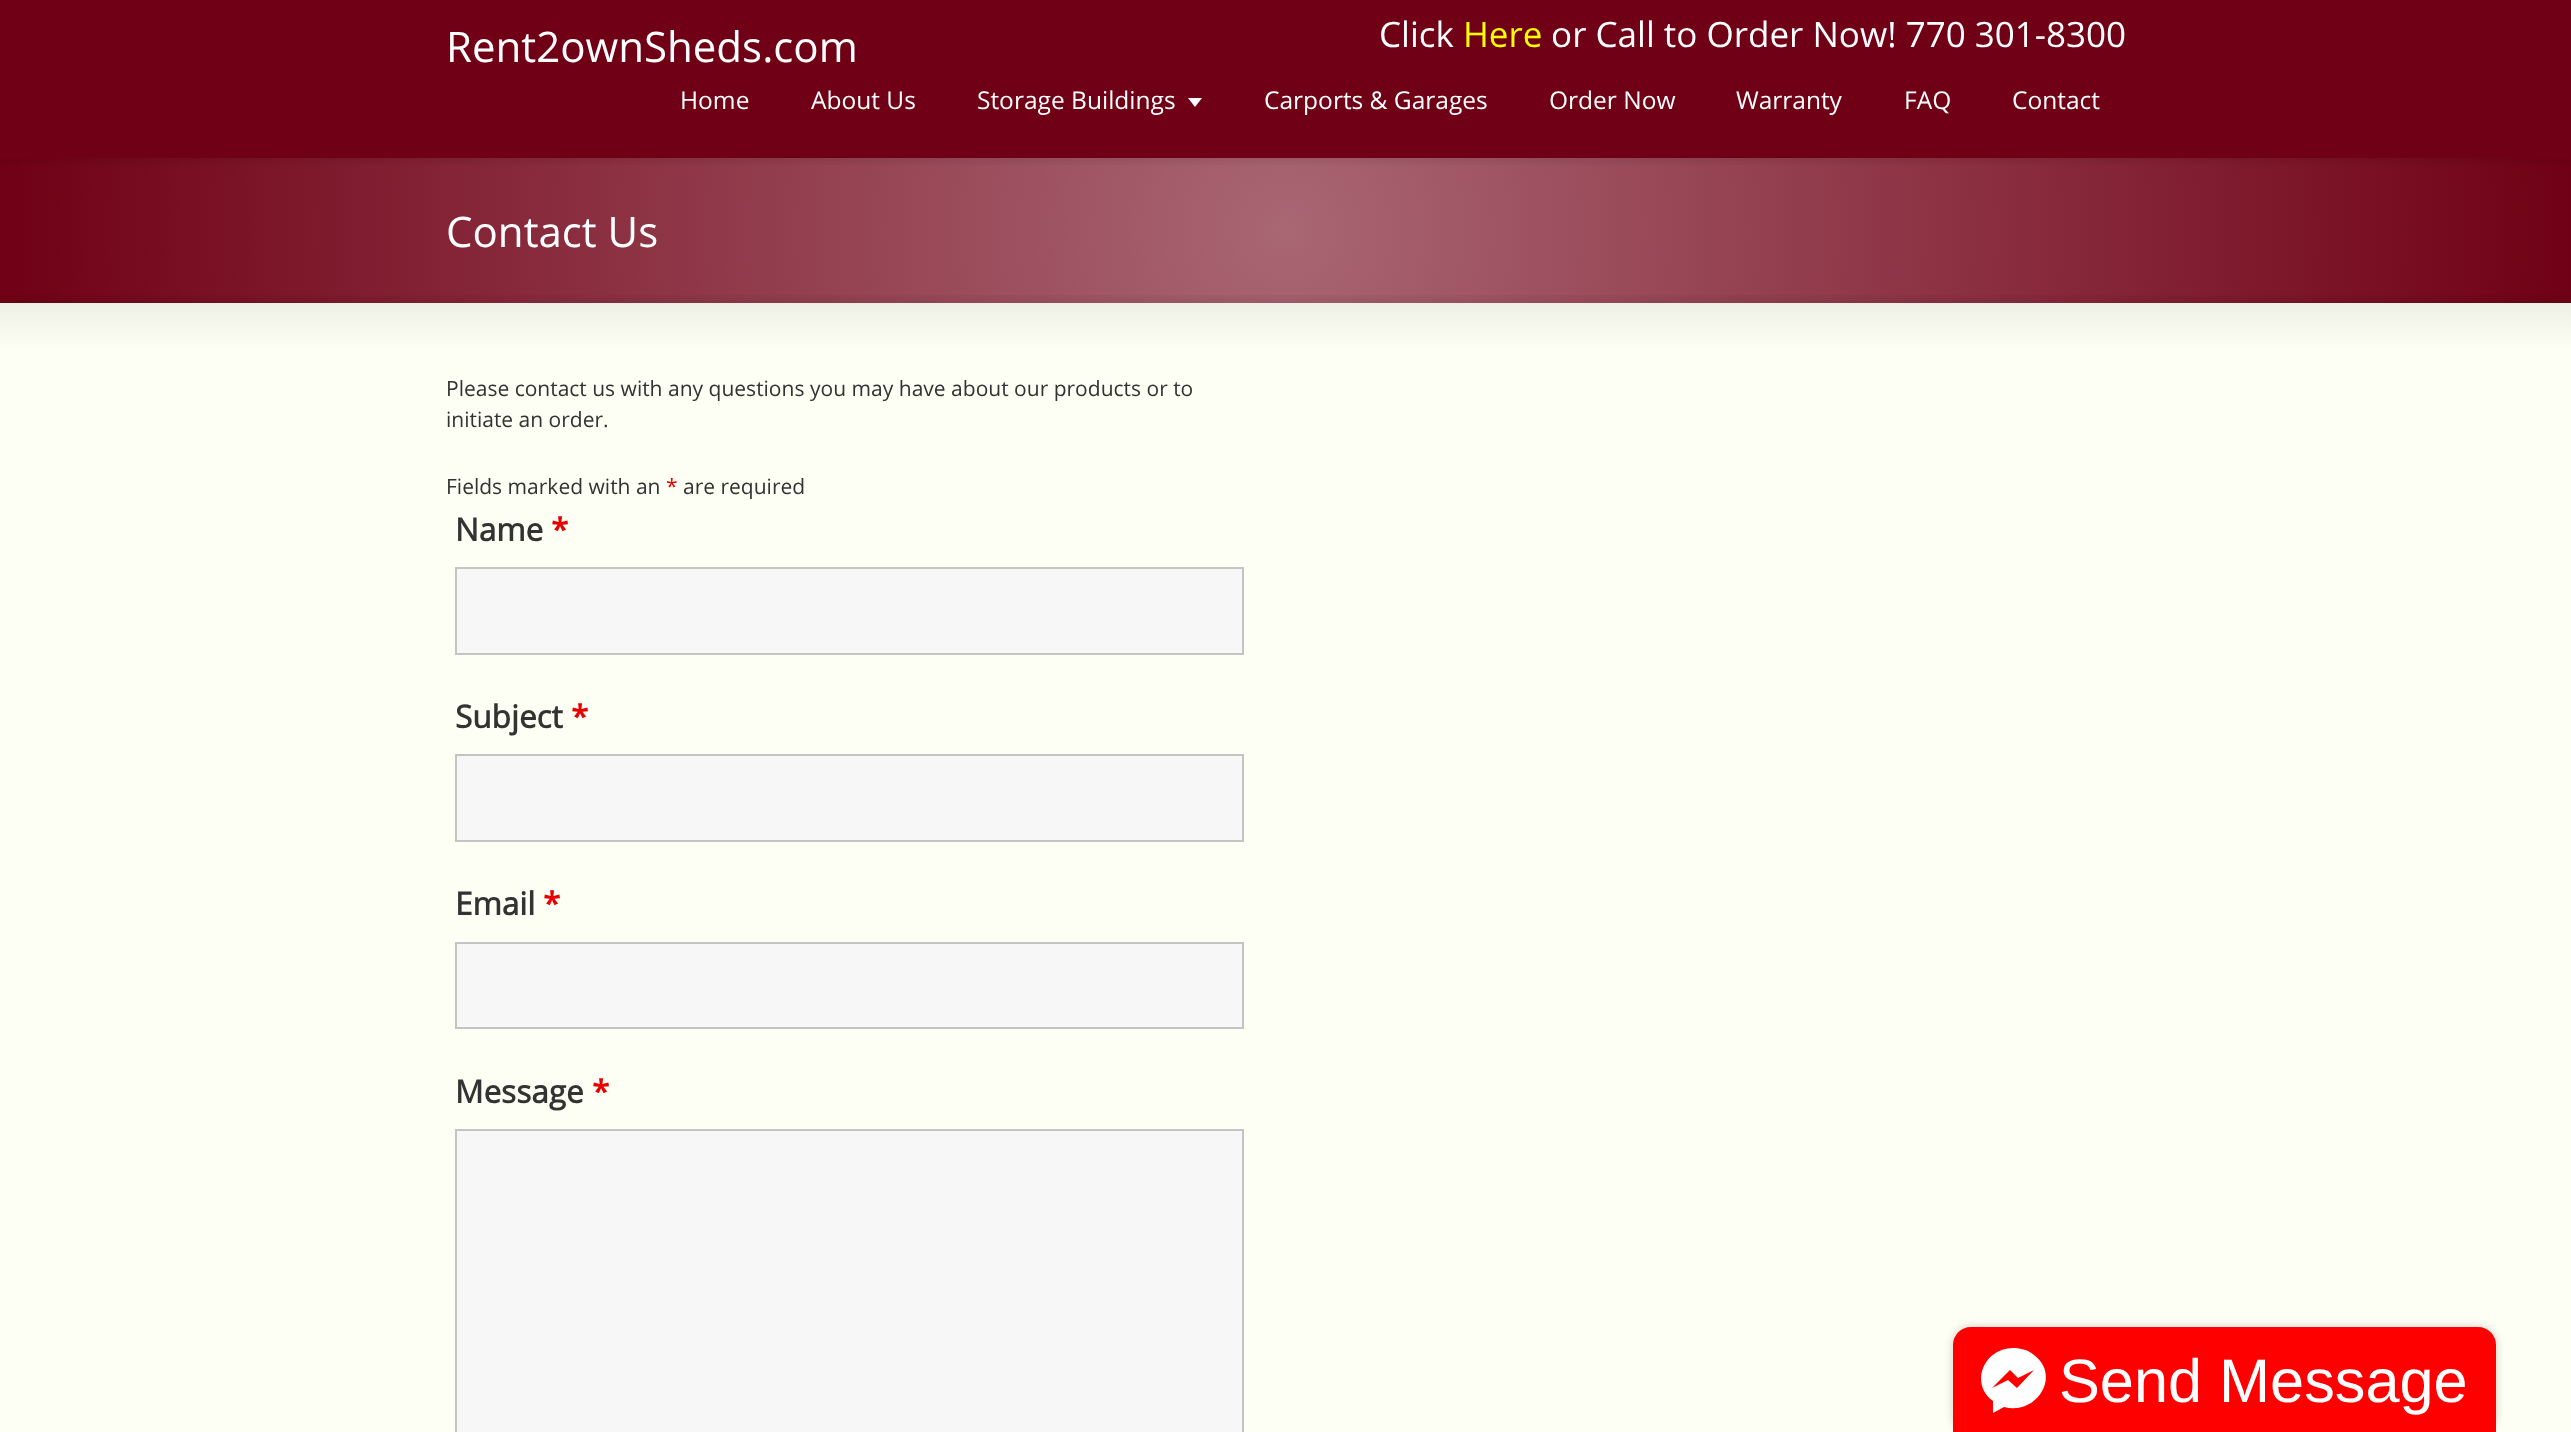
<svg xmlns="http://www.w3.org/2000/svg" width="2571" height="1432">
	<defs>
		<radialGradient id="g1" gradientUnits="userSpaceOnUse" cx="1286" cy="230" r="1288"><stop offset="0" stop-color="#A96673" /><stop offset="1" stop-color="#700015" /></radialGradient>
		<linearGradient id="g2" gradientUnits="userSpaceOnUse" x1="1286" y1="303" x2="1286" y2="350"><stop offset="0" stop-color="#EFF0E5" /><stop offset="1" stop-color="#FEFFF4" /></linearGradient>
	</defs>
	<rect width="100%" height="100%" fill="#FFFFFF" />
	<rect x="0" y="0" width="2571" height="158" fill="#700015" />
	<text x="446" y="62" font-family="Open Sans" font-size="42" fill="#FFFFFF">Rent2ownSheds.com</text>
	<text x="1379" y="47" font-family="Open Sans" font-size="35" fill="#FFFFFF">Click</text>
	<text x="1463" y="47" font-family="Open Sans" font-size="35" fill="#FFFF00">Here</text>
	<text x="1551" y="47" font-family="Open Sans" font-size="35" fill="#FFFFFF">or Call to Order Now! 770 301-8300</text>
	<g font-family="Open Sans" font-size="24.5" fill="#FFFFFF">
		<text x="680" y="109">Home</text>
		<text x="811" y="109">About Us</text>
		<text x="977" y="109">Storage Buildings</text>
	</g>
	<path d="M1188 98H1202L1195 107Z" fill="#FFFFFF" />
	<g font-family="Open Sans" font-size="24.5" fill="#FFFFFF">
		<text x="1264" y="109">Carports &amp; Garages</text>
		<text x="1549" y="109">Order Now</text>
		<text x="1736" y="109">Warranty</text>
		<text x="1904" y="109">FAQ</text>
		<text x="2012" y="109">Contact</text>
	</g>
	<rect x="0" y="158" width="2571" height="145" fill="url(#g1)" />
	<image x="0" y="158" width="2571" height="7" href="assets/img1.png" />
	<text x="446" y="247" font-family="Open Sans" font-size="42" fill="#FFFFFF">Contact Us</text>
	<image x="0" y="295" width="2571" height="8" href="assets/img2.png" />
	<rect x="0" y="350" width="2571" height="1082" fill="#FEFFF4" />
	<rect x="0" y="303" width="2571" height="47" fill="url(#g2)" />
	<g font-family="Open Sans" font-size="21" fill="#333333">
		<text x="446" y="396">Please contact us with any questions you may have about our products or to</text>
		<text x="446" y="427">initiate an order.</text>
		<text x="446" y="494">Fields marked with an</text>
	</g>
	<text x="666" y="494" font-family="Open Sans" font-size="21" fill="#E80000">*</text>
	<text x="683" y="494" font-family="Open Sans" font-size="21" fill="#333333">are required</text>
	<text x="455" y="541" font-family="Open Sans" font-size="31.5" font-weight="700" fill="#333333">Name</text>
	<text x="551" y="541" font-family="Open Sans" font-size="31.5" font-weight="700" fill="#E80000">*</text>
	<rect x="456" y="568" width="787" height="86" fill="#F7F7F7" stroke="#C4C4C4" stroke-width="2" />
	<text x="455" y="728" font-family="Open Sans" font-size="31.5" font-weight="700" fill="#333333">Subject</text>
	<text x="571" y="728" font-family="Open Sans" font-size="31.5" font-weight="700" fill="#E80000">*</text>
	<rect x="456" y="755" width="787" height="86" fill="#F7F7F7" stroke="#C4C4C4" stroke-width="2" />
	<text x="455" y="915" font-family="Open Sans" font-size="31.5" font-weight="700" fill="#333333">Email</text>
	<text x="543" y="915" font-family="Open Sans" font-size="31.5" font-weight="700" fill="#E80000">*</text>
	<rect x="456" y="943" width="787" height="85" fill="#F7F7F7" stroke="#C4C4C4" stroke-width="2" />
	<text x="455" y="1103" font-family="Open Sans" font-size="31.5" font-weight="700" fill="#333333">Message</text>
	<text x="592" y="1103" font-family="Open Sans" font-size="31.5" font-weight="700" fill="#E80000">*</text>
	<rect x="456" y="1130" width="787" height="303" fill="#F7F7F7" stroke="#C4C4C4" stroke-width="2" />
	<rect x="1953" y="1327" width="543" height="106" rx="18" fill="#000000" fill-opacity="0.2" filter="blur(4.5px)" />
	<path d="M1971 1327H2478C2488 1327 2496 1335 2496 1345V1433H1953V1345C1953 1335 1961 1327 1971 1327Z" fill="#FF0000" />
	<path d="M2013 1348C1984 1348 1969 1384 1993 1401V1413L2004 1407C2036 1416 2062 1376 2034 1355C2028 1350 2021 1348 2013 1348ZM2017 1388L2008 1380L1992 1388L2010 1370L2018 1378L2034 1370Z" fill="#FFFFFF" />
	<text x="2059" y="1402" font-family="Liberation Sans" font-size="61.25" fill="#FFFFFF">Send Message</text>
</svg>
